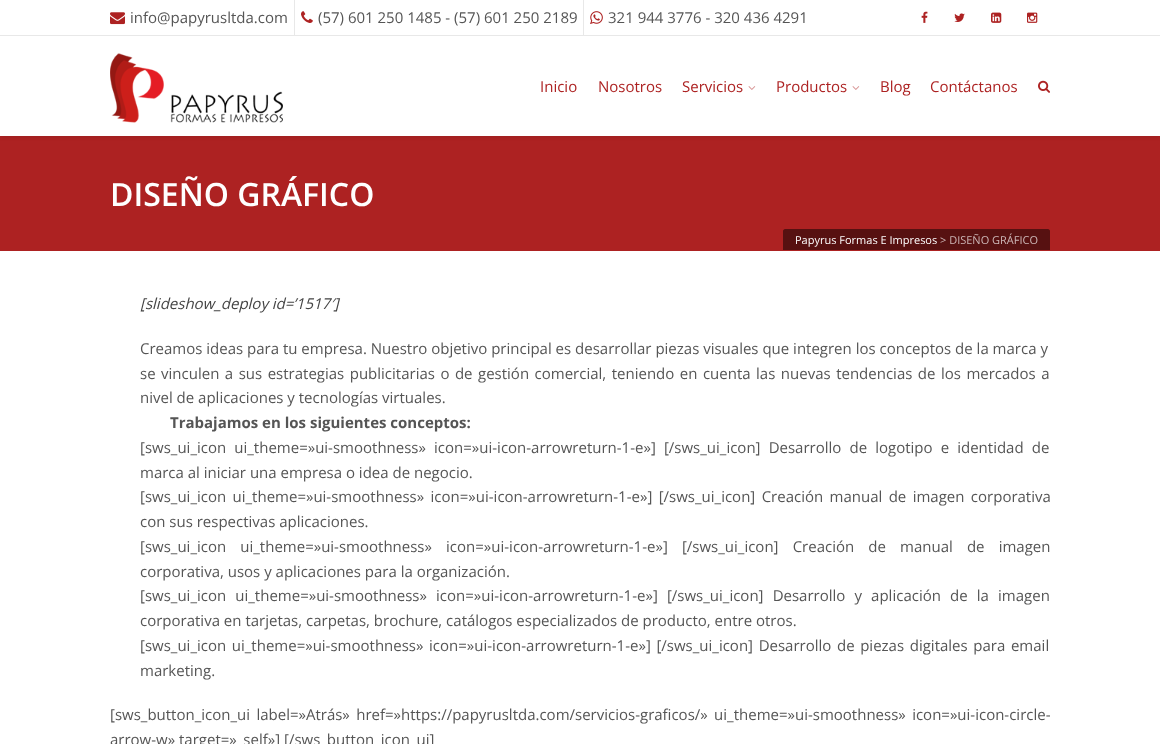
<svg xmlns="http://www.w3.org/2000/svg" width="1160" height="744">
	<defs>
		<clipPath id="clip1"><rect x="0" y="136" width="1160" height="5" /></clipPath>
	</defs>
	<rect width="100%" height="100%" fill="#FFFFFF" />
	<rect x="0" y="35" width="1160" height="1" fill="#E8E8E8" />
	<rect x="294" y="0" width="1" height="35" fill="#E8E8E8" />
	<image x="110" y="12" width="15" height="13" href="assets/img1.png" />
	<text x="130" y="23" font-family="Open Sans" font-size="15" fill="#555555">info@papyrusltda.com</text>
	<rect x="583" y="0" width="1" height="35" fill="#E8E8E8" />
	<image x="301" y="11" width="12" height="12" href="assets/img2.png" />
	<text x="318" y="23" font-family="Open Sans" font-size="15" fill="#555555">(57) 601 250 1485 - (57) 601 250 2189</text>
	<image x="590" y="11" width="13" height="13" href="assets/img3.png" />
	<text x="608" y="23" font-family="Open Sans" font-size="15" fill="#555555">321 944 3776 - 320 436 4291</text>
	<image x="921" y="11" width="7" height="12" href="assets/img4.png" />
	<image x="954" y="13" width="11" height="9" href="assets/img5.png" />
	<image x="991" y="12" width="11" height="11" href="assets/img6.png" />
	<image x="1027" y="12" width="11" height="11" href="assets/img7.png" />
	<image x="110" y="53" width="173" height="70" href="assets/img8.png" />
	<g font-family="Open Sans" font-size="15" fill="#AD2222">
		<text x="540" y="92">Inicio</text>
		<text x="598" y="92">Nosotros</text>
		<text x="682" y="92">Servicios</text>
	</g>
	<image x="748" y="86" width="8" height="4" href="assets/img9.png" />
	<text x="776" y="92" font-family="Open Sans" font-size="15" fill="#AD2222">Productos</text>
	<image x="852" y="86" width="8" height="4" href="assets/img9.png" />
	<g font-family="Open Sans" font-size="15" fill="#AD2222">
		<text x="880" y="92">Blog</text>
		<text x="930" y="92">Contáctanos</text>
	</g>
	<image x="1038" y="80" width="12" height="13" href="assets/img10.png" />
	<rect x="0" y="136" width="1160" height="115" fill="#AD2222" />
	<g clip-path="url(#clip1)">
		<rect x="0" y="132" width="1160" height="5" rx="2.5" fill="#000000" fill-opacity="0.1" filter="blur(2px)" />
	</g>
	<text x="110" y="206" font-family="Open Sans" font-size="32" font-weight="600" fill="#FFFFFF">DISEÑO GRÁFICO</text>
	<path d="M785 229H1048C1049 229 1050 230 1050 231V250H783V231C783 230 784 229 785 229Z" fill="#571111" />
	<text x="795" y="244" font-family="Open Sans" font-size="11" fill="#FFFFFF">Papyrus Formas E Impresos</text>
	<text x="940" y="244" font-family="Open Sans" font-size="11" fill="#CDB8B8">&gt; DISEÑO GRÁFICO</text>
	<text x="140" y="309" font-family="Open Sans" font-size="15" font-style="italic" fill="#444444">[slideshow_deploy id=’1517′]</text>
	<g font-family="Open Sans" font-size="15" fill="#555555">
		<text x="140" y="354">Creamos ideas para tu empresa. Nuestro objetivo principal es desarrollar piezas visuales que integren los conceptos de la marca y</text>
		<text x="140" y="379" word-spacing="1.6">se vinculen a sus estrategias publicitarias o de gestión comercial, teniendo en cuenta las nuevas tendencias de los mercados a</text>
		<text x="140" y="403">nivel de aplicaciones y tecnologías virtuales.</text>
	</g>
	<text x="170" y="428" font-family="Open Sans" font-size="15" font-weight="700" fill="#555555">Trabajamos en los siguientes conceptos:</text>
	<g font-family="Open Sans" font-size="15" fill="#555555">
		<text x="140" y="453" word-spacing="4.25">[sws_ui_icon ui_theme=»ui-smoothness» icon=»ui-icon-arrowreturn-1-e»] [/sws_ui_icon] Desarrollo de logotipo e identidad de</text>
		<text x="140" y="478">marca al iniciar una empresa o idea de negocio.</text>
		<text x="140" y="502" word-spacing="2.5">[sws_ui_icon ui_theme=»ui-smoothness» icon=»ui-icon-arrowreturn-1-e»] [/sws_ui_icon] Creación manual de imagen corporativa</text>
		<text x="140" y="527">con sus respectivas aplicaciones.</text>
		<text x="140" y="552" word-spacing="10.25">[sws_ui_icon ui_theme=»ui-smoothness» icon=»ui-icon-arrowreturn-1-e»] [/sws_ui_icon] Creación de manual de imagen</text>
		<text x="140" y="577">corporativa, usos y aplicaciones para la organización.</text>
		<text x="140" y="601" word-spacing="5.25">[sws_ui_icon ui_theme=»ui-smoothness» icon=»ui-icon-arrowreturn-1-e»] [/sws_ui_icon] Desarrollo y aplicación de la imagen</text>
		<text x="140" y="626">corporativa en tarjetas, carpetas, brochure, catálogos especializados de producto, entre otros.</text>
		<text x="140" y="651" word-spacing="1.75">[sws_ui_icon ui_theme=»ui-smoothness» icon=»ui-icon-arrowreturn-1-e»] [/sws_ui_icon] Desarrollo de piezas digitales para email</text>
		<text x="140" y="676">marketing.</text>
		<text x="110" y="720" word-spacing="2.5">[sws_button_icon_ui label=»Atrás» href=»https://papyrusltda.com/servicios-graficos/» ui_theme=»ui-smoothness» icon=»ui-icon-circle-</text>
		<text x="110" y="745">arrow-w» target=»_self»] [/sws_button_icon_ui]</text>
	</g>
</svg>
